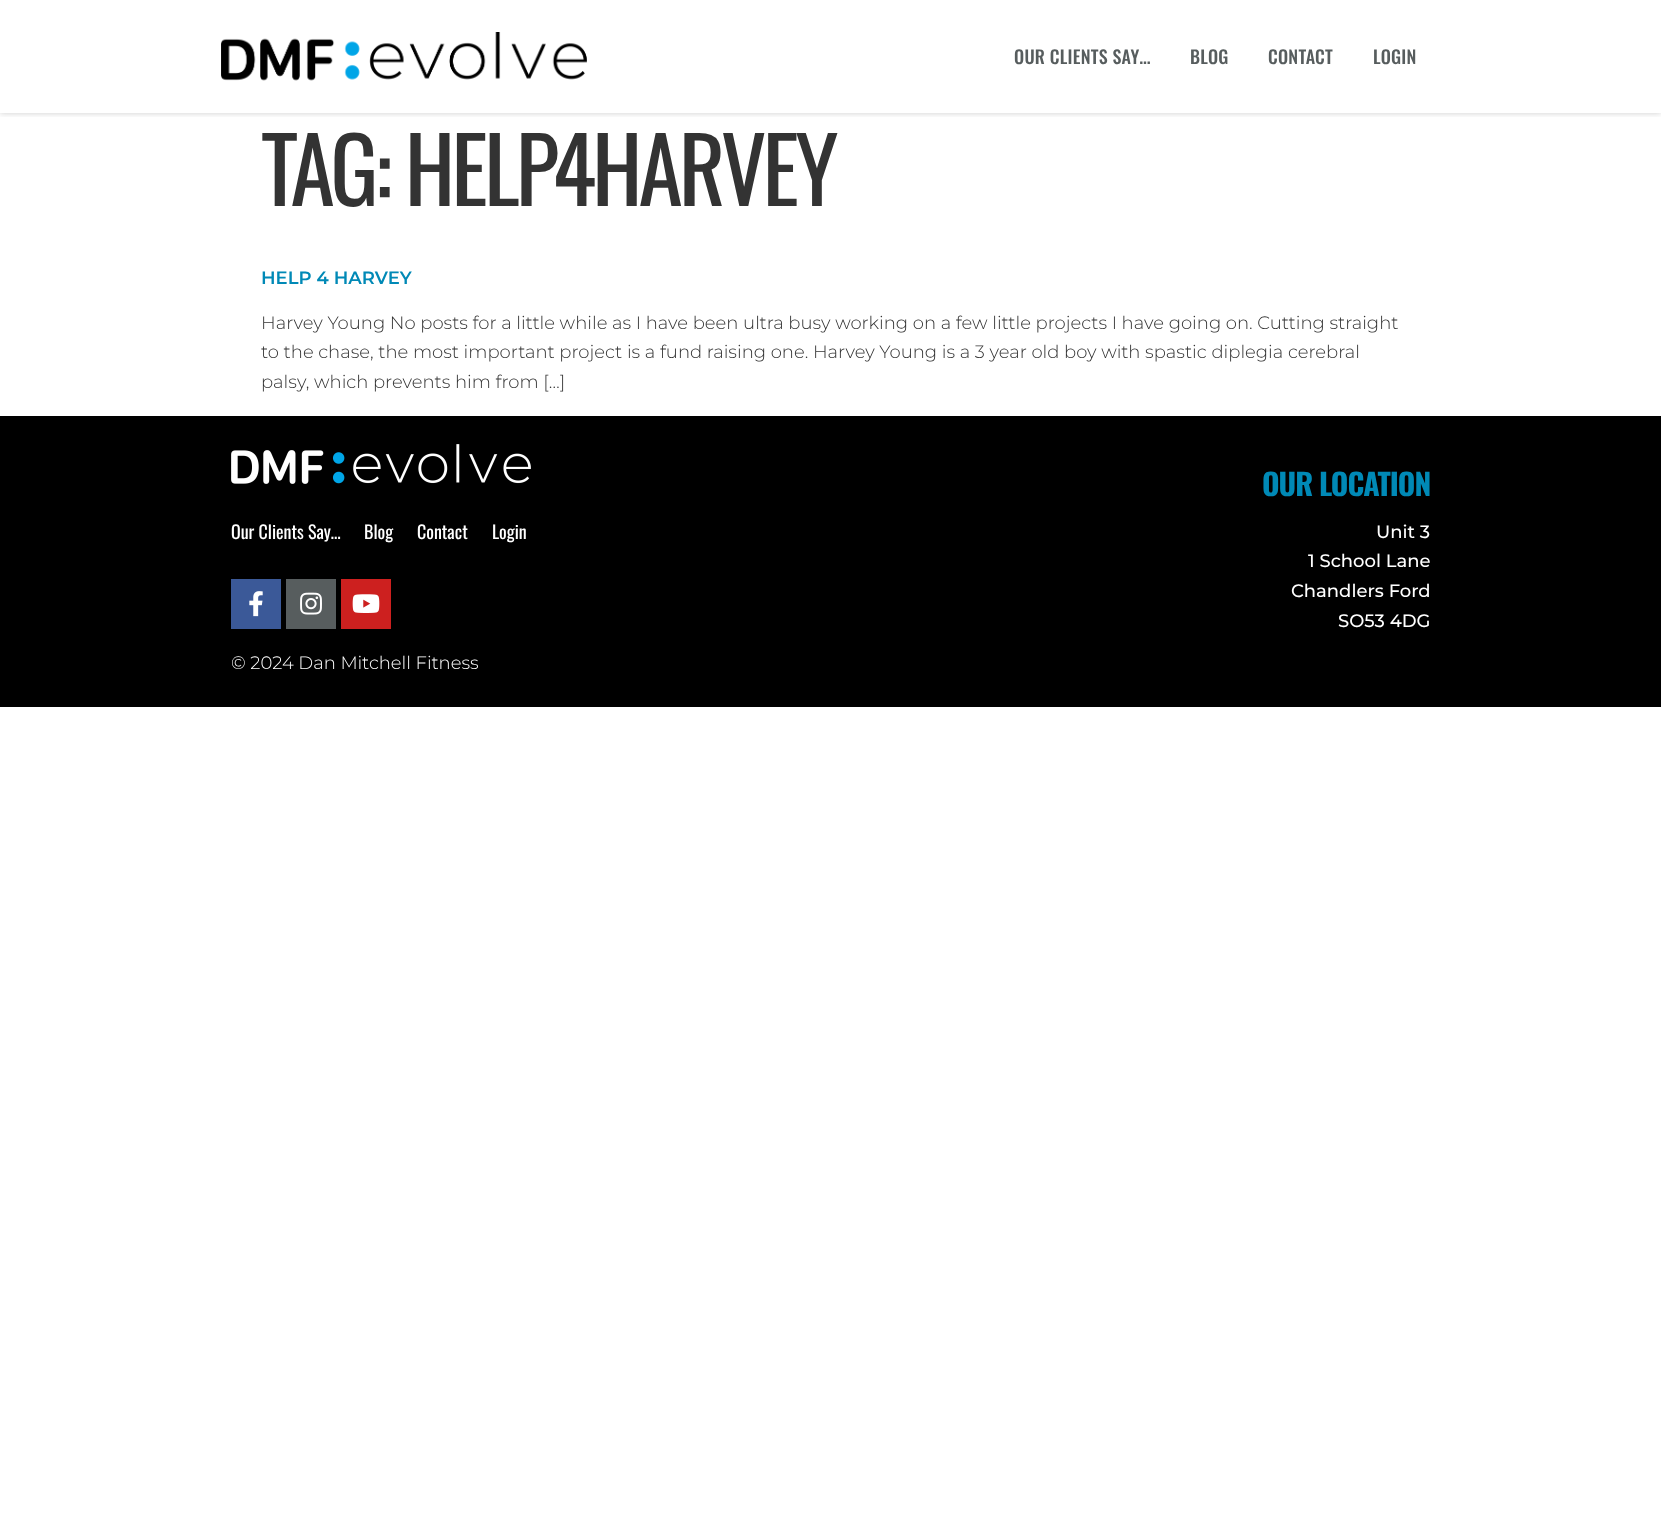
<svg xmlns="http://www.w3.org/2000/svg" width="1661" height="1531">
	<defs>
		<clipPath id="clip1"><rect x="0" y="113" width="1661" height="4" /></clipPath>
	</defs>
	<rect width="100%" height="100%" fill="#FFFFFF" />
	<g clip-path="url(#clip1)">
		<rect x="0" y="0" width="1661" height="113" fill="#000000" fill-opacity="0.2" filter="blur(3px)" />
	</g>
	<image x="221" y="32" width="366" height="49" href="assets/img1.png" />
	<g font-family="Oswald" font-size="18" font-weight="500" letter-spacing="0.25" fill="#575D5E">
		<text x="1014" y="64">OUR CLIENTS SAY…</text>
		<text x="1190" y="64">BLOG</text>
		<text x="1268" y="64">CONTACT</text>
		<text x="1373" y="64">LOGIN</text>
	</g>
	<text x="261" y="206" font-family="Oswald" font-size="90" letter-spacing="-4" fill="#333333">TAG: HELP4HARVEY</text>
	<text x="261" y="284" font-family="Montserrat" font-size="18" font-weight="600" fill="#0089B6">HELP 4 HARVEY</text>
	<g font-family="Montserrat" font-size="18" font-weight="300" fill="#333333">
		<text x="261" y="329">Harvey Young No posts for a little while as I have been ultra busy working on a few little projects I have going on. Cutting straight</text>
		<text x="261" y="358">to the chase, the most important project is a fund raising one. Harvey Young is a 3 year old boy with spastic diplegia cerebral</text>
		<text x="261" y="388">palsy, which prevents him from […]</text>
	</g>
	<rect x="0" y="416" width="1661" height="291" fill="#000000" />
	<image x="231" y="444" width="300" height="40" href="assets/img2.png" />
	<g font-family="Oswald" font-size="18" fill="#FFFFFF">
		<text x="231" y="539">Our Clients Say…</text>
		<text x="364" y="539">Blog</text>
		<text x="417" y="539">Contact</text>
		<text x="492" y="539">Login</text>
	</g>
	<rect x="231" y="579" width="50" height="50" fill="#3B5998" />
	<image x="249" y="591" width="14" height="26" href="assets/img3.png" />
	<rect x="286" y="579" width="50" height="50" fill="#575D5E" />
	<image x="300" y="592" width="22" height="23" href="assets/img4.png" />
	<rect x="341" y="579" width="50" height="50" fill="#CD201F" />
	<image x="352" y="594" width="28" height="19" href="assets/img5.png" />
	<text x="231" y="669" font-family="Montserrat" font-size="18" font-weight="300" fill="#FFFFFF">© 2024 Dan Mitchell Fitness</text>
	<text x="1262" y="496" font-family="Oswald" font-size="30" font-weight="700" letter-spacing="-1" fill="#0089B6">OUR LOCATION</text>
	<g font-family="Montserrat" font-size="18" font-weight="500" fill="#FFFFFF">
		<text x="1376" y="538">Unit 3</text>
		<text x="1308" y="567">1 School Lane</text>
		<text x="1291" y="597">Chandlers Ford</text>
		<text x="1338" y="627">SO53 4DG</text>
	</g>
</svg>
